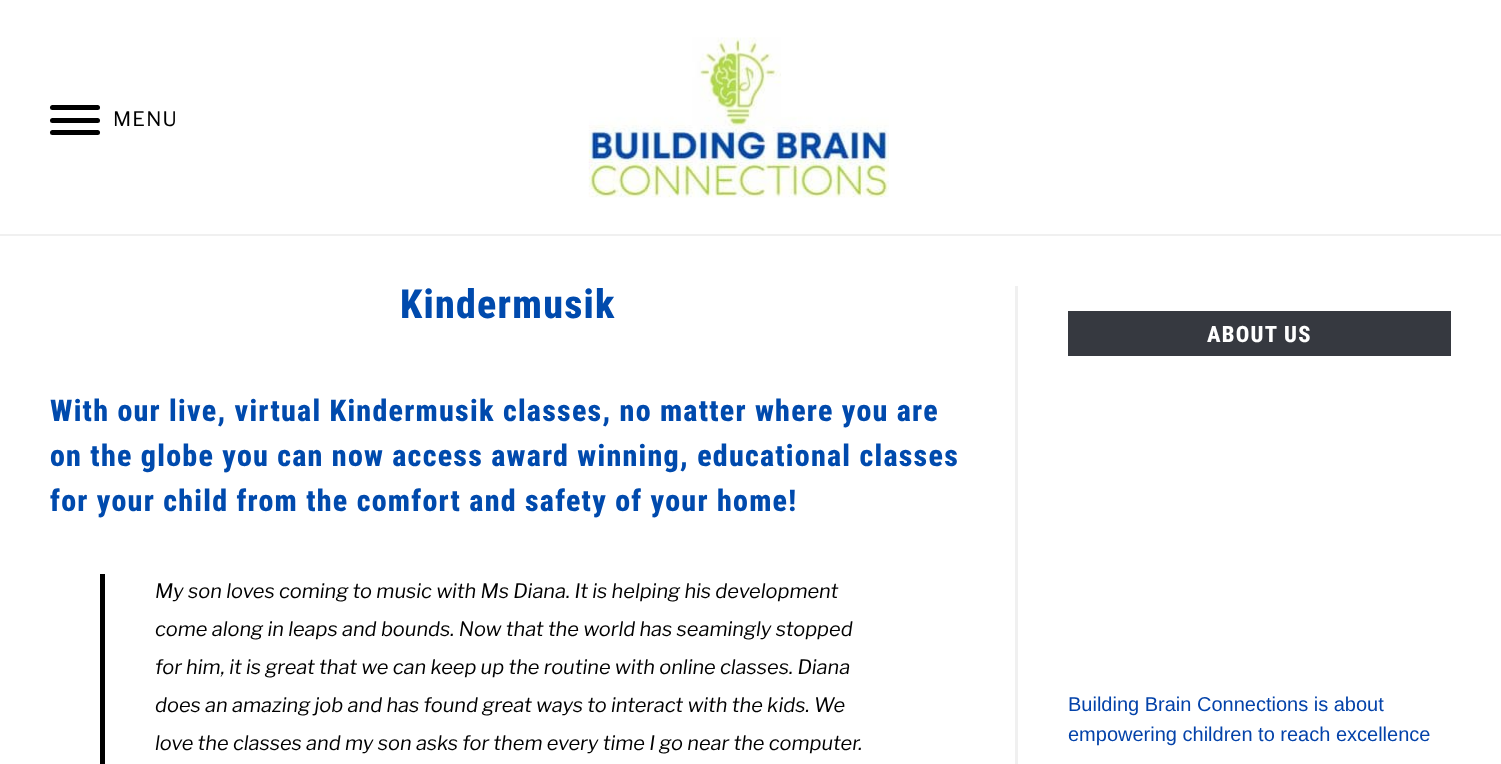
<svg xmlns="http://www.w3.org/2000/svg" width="1501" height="764">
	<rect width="100%" height="100%" fill="#FFFFFF" />
	<rect x="50" y="118" width="50" height="5" rx="2.5" fill="#000000" />
	<rect x="50" y="105" width="50" height="5" rx="2.5" fill="#000000" />
	<rect x="50" y="130" width="50" height="5" rx="2.5" fill="#000000" />
	<text x="113" y="126" font-family="Libre Franklin" font-size="20" letter-spacing="1.25" fill="#000000">MENU</text>
	<image x="588" y="37" width="301" height="161" href="assets/img1.png" />
	<rect x="0" y="234" width="1501" height="2" fill="#F0F0F0" />
	<text x="400" y="318" font-family="Roboto Condensed" font-size="40" font-weight="800" letter-spacing="1.25" fill="#004AAD">Kindermusik</text>
	<g font-family="Roboto Condensed" font-size="30" font-weight="800" letter-spacing="1.25" fill="#004AAD">
		<text x="50" y="421">With our live, virtual Kindermusik classes, no matter where you are</text>
		<text x="50" y="466">on the globe you can now access award winning, educational classes</text>
		<text x="50" y="511">for your child from the comfort and safety of your home!</text>
	</g>
	<rect x="100" y="574" width="5" height="190" fill="#000000" />
	<g font-family="Libre Franklin" font-size="20" font-style="italic" fill="#000000">
		<text x="155" y="598">My son loves coming to music with Ms Diana. It is helping his development</text>
		<text x="155" y="636">come along in leaps and bounds. Now that the world has seamingly stopped</text>
		<text x="155" y="674">for him, it is great that we can keep up the routine with online classes. Diana</text>
		<text x="155" y="712">does an amazing job and has found great ways to interact with the kids. We</text>
		<text x="155" y="750">love the classes and my son asks for them every time I go near the computer.</text>
	</g>
	<rect x="1015" y="286" width="3" height="478" fill="#F0F0F0" />
	<rect x="1068" y="311" width="383" height="45" fill="#363940" />
	<text x="1207" y="342" font-family="Roboto Condensed" font-size="22.5" font-weight="800" letter-spacing="1.25" fill="#FFFFFF">ABOUT US</text>
	<g font-family="Liberation Sans" font-size="20" fill="#0342A9">
		<text x="1068" y="711">Building Brain Connections is about</text>
		<text x="1068" y="741">empowering children to reach excellence</text>
	</g>
</svg>
